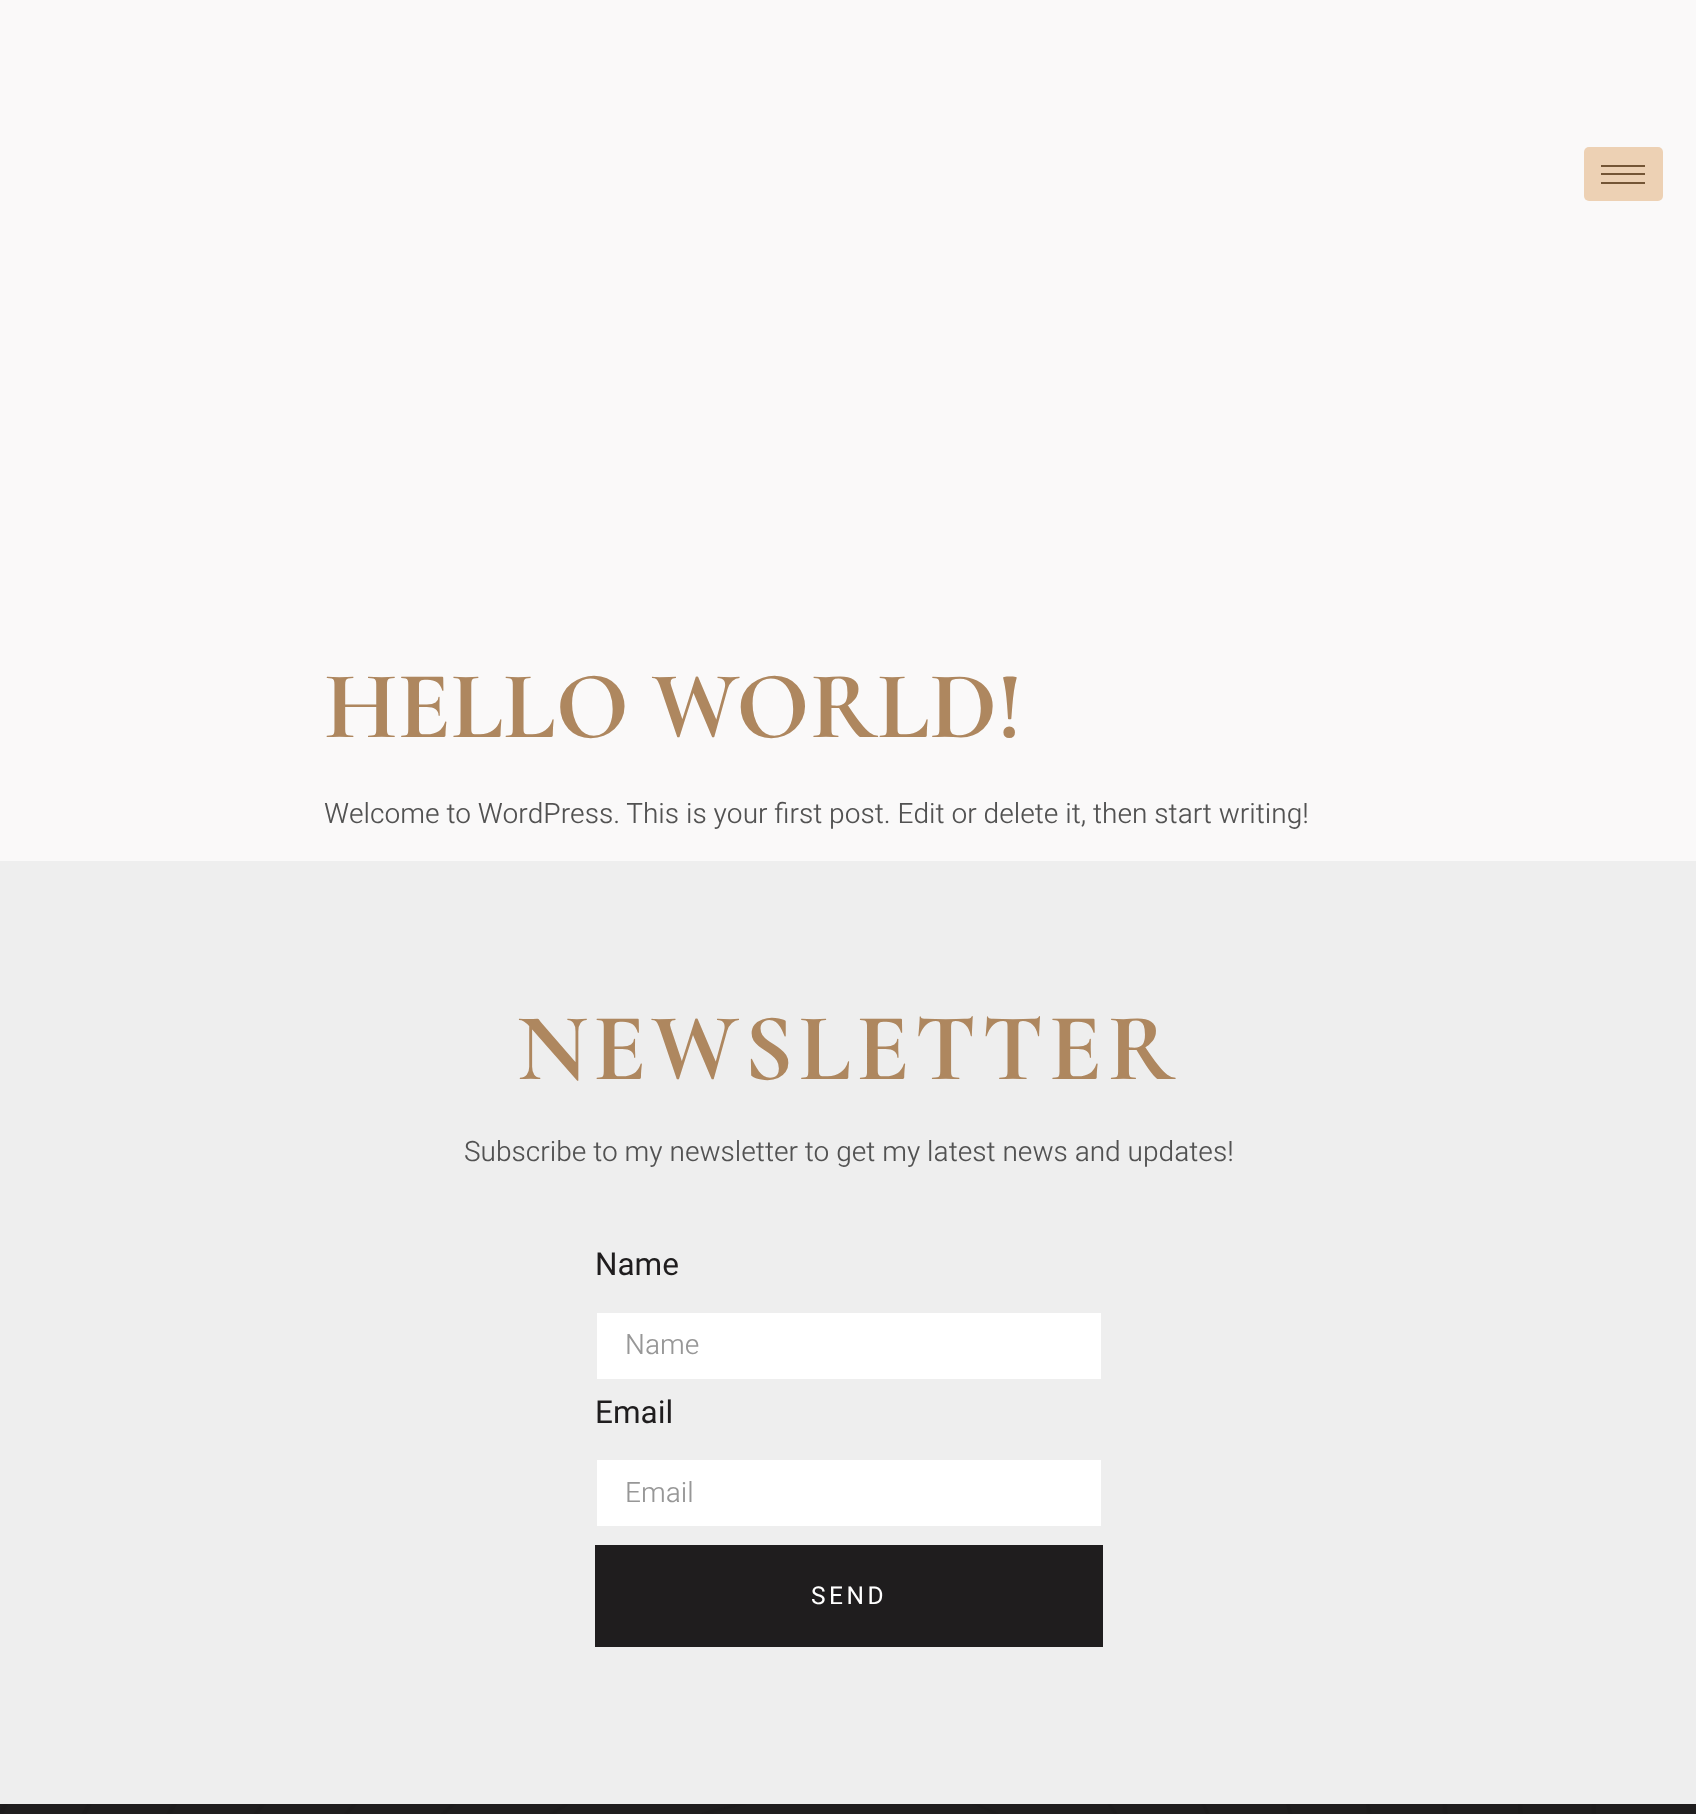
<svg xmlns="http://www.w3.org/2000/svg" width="1696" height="1814">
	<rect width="100%" height="100%" fill="#FAF9F9" />
	<rect x="1584" y="147" width="79" height="54" rx="5" fill="#EDD1B4" />
	<rect x="1601" y="165" width="44" height="2" fill="#745535" />
	<rect x="1601" y="173" width="44" height="2" fill="#745535" />
	<rect x="1601" y="182" width="44" height="2" fill="#745535" />
	<text x="324" y="737" font-family="Cormorant Infant" font-size="96.25" font-weight="700" fill="#AE875F">HELLO WORLD!</text>
	<text x="324" y="823" font-family="Heebo" font-size="28" font-weight="300" fill="#525252">Welcome to WordPress. This is your first post. Edit or delete it, then start writing!</text>
	<rect x="0" y="861" width="1696" height="943" fill="#EEEEEE" />
	<text x="517" y="1079" font-family="Cormorant Infant" font-size="96.25" font-weight="700" letter-spacing="5.25" fill="#AE875F">NEWSLETTER</text>
	<text x="464" y="1161" font-family="Heebo" font-size="28" font-weight="300" fill="#525252">Subscribe to my newsletter to get my latest news and updates!</text>
	<text x="595" y="1275" font-family="Heebo" font-size="31.5" fill="#1F1D1E">Name</text>
	<rect x="597" y="1313" width="504" height="66" fill="#FFFFFF" />
	<text x="625" y="1354" font-family="Heebo" font-size="28" font-weight="300" fill="#979797">Name</text>
	<text x="595" y="1423" font-family="Heebo" font-size="31.5" fill="#1F1D1E">Email</text>
	<rect x="597" y="1460" width="504" height="66" fill="#FFFFFF" />
	<text x="625" y="1502" font-family="Heebo" font-size="28" font-weight="300" fill="#979797">Email</text>
	<rect x="595" y="1545" width="508" height="102" fill="#1F1D1E" />
	<text x="811" y="1604" font-family="Heebo" font-size="24.5" letter-spacing="3.5" fill="#FFFFFF">SEND</text>
	<rect x="0" y="1804" width="1696" height="10" fill="#1F1D1E" />
	<image x="0" y="1804" width="1596" height="10" href="assets/img1.png" />
</svg>
